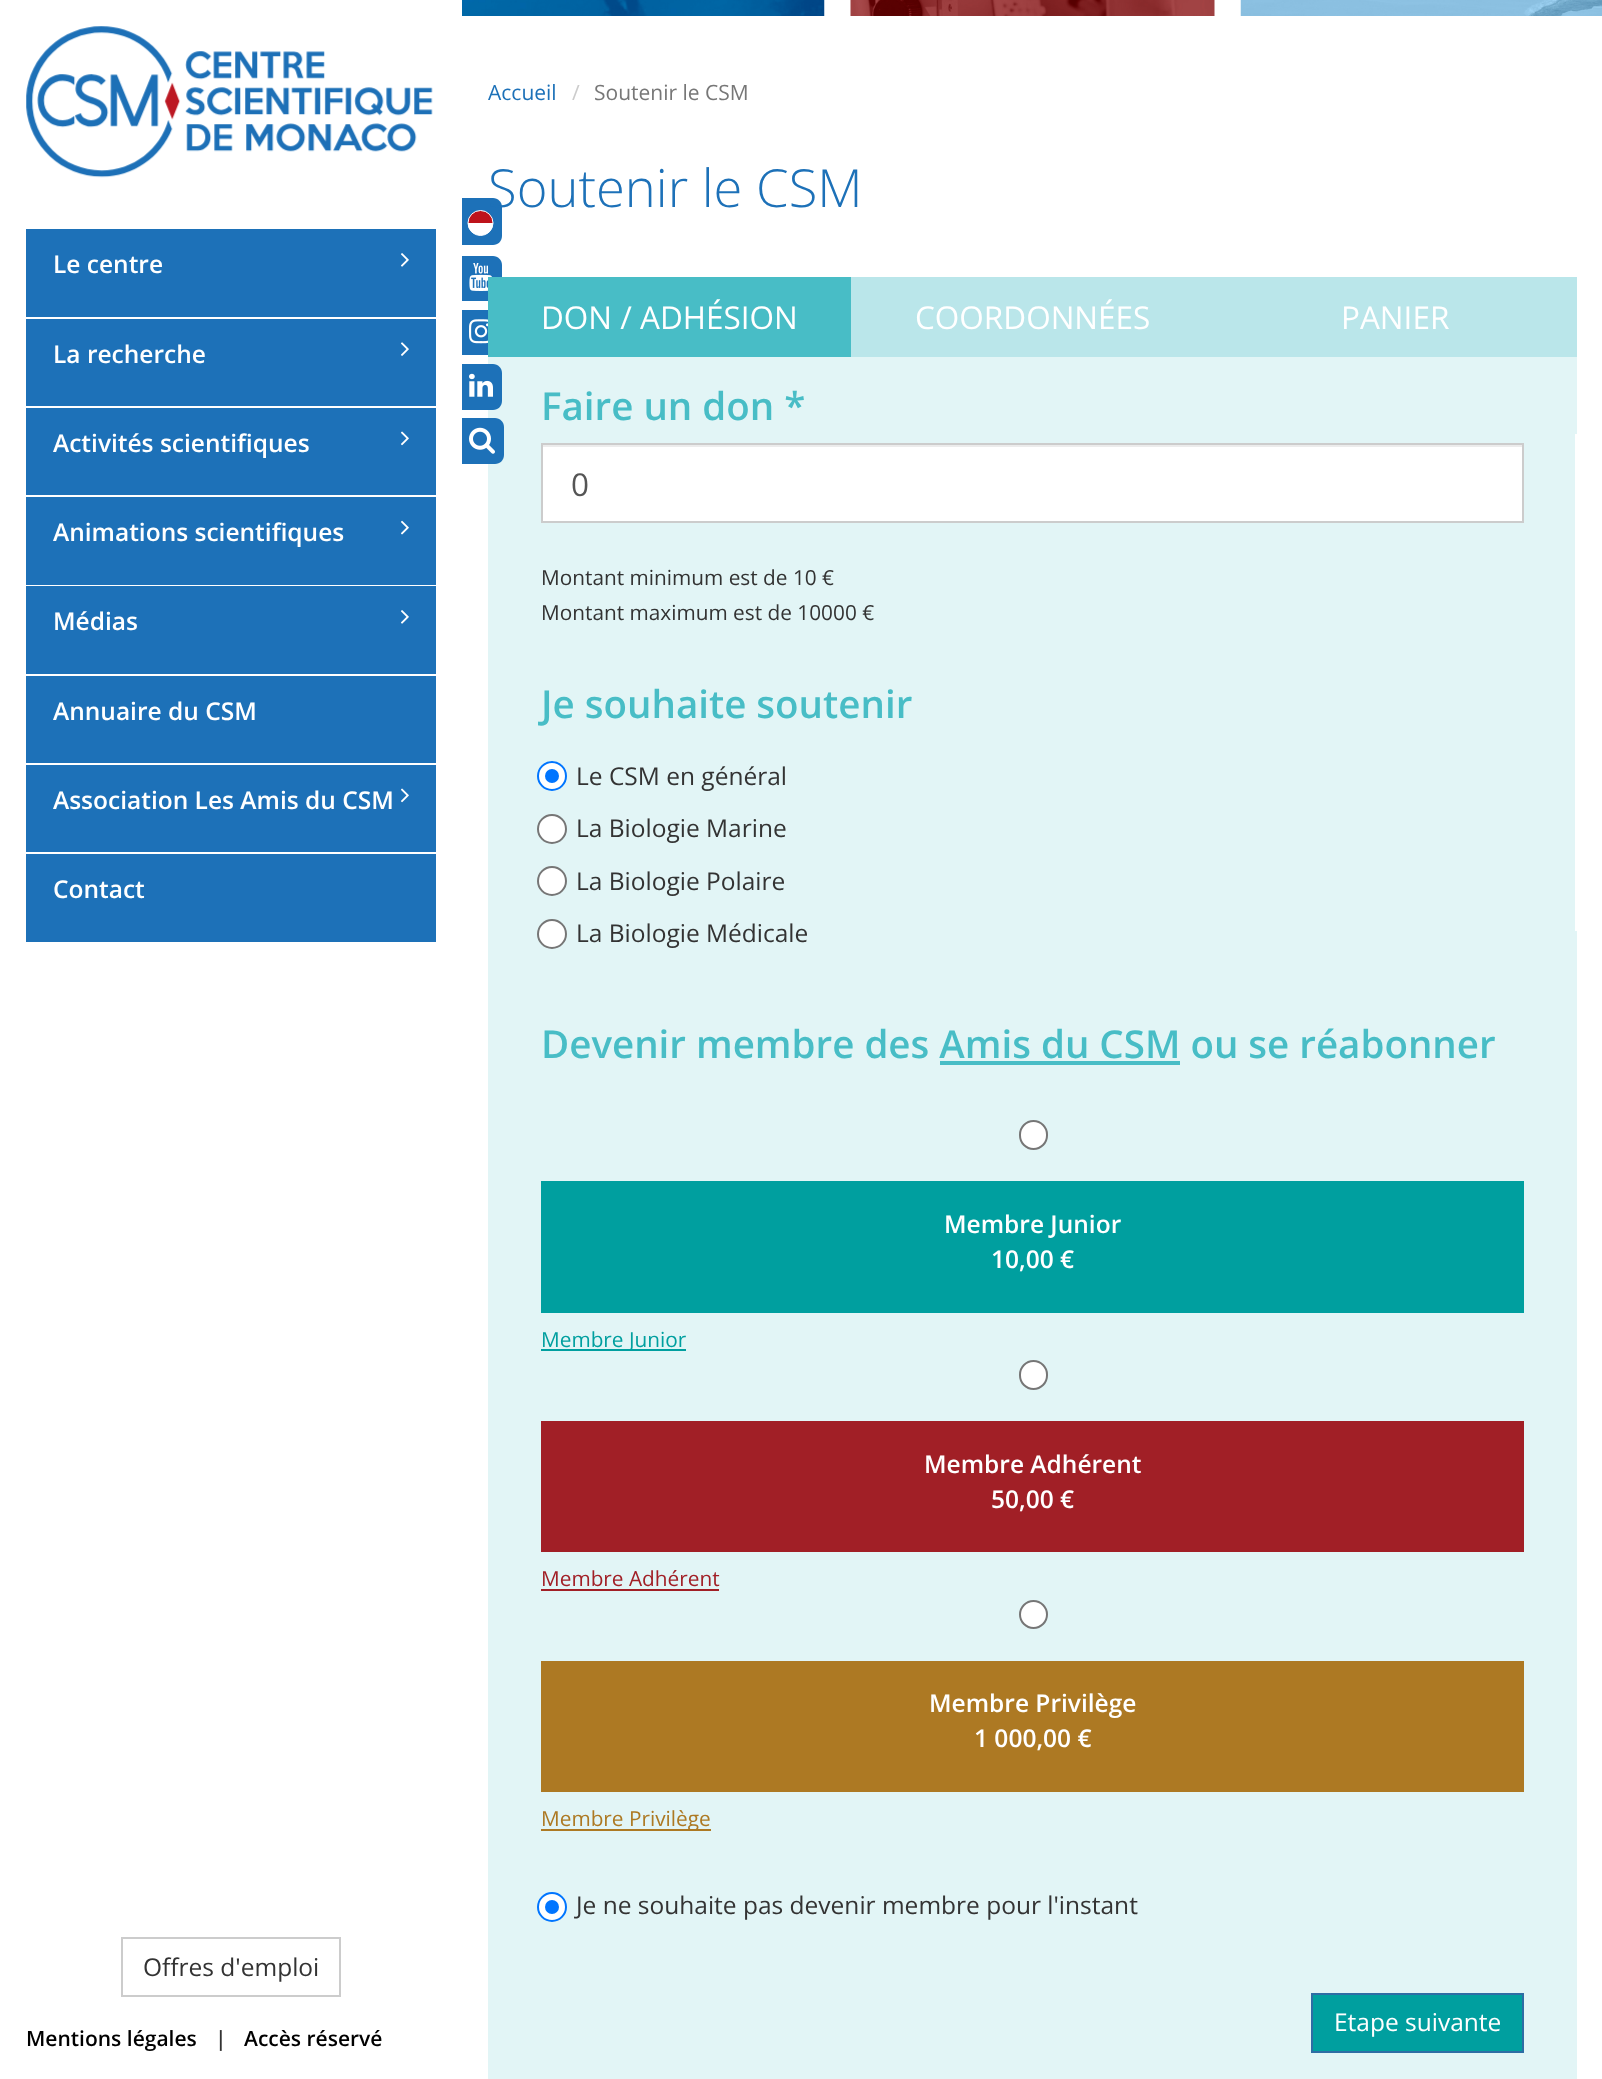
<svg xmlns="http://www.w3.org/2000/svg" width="1602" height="2079">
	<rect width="100%" height="100%" fill="#FFFFFF" />
	<path d="M415 198H493C498 198 502 202 502 207V236C502 241 498 245 493 245H415Z" fill="#1D71B8" />
	<path d="M468 223C468 206.5 493 206.5 493 223Z" fill="#BE131B" />
	<path d="M493 223C493 239.5 468 239.5 468 223Z" fill="#FFFFFF" />
	<circle cx="480.5" cy="223" r="12.5" fill="none" stroke="#FFFFFF" />
	<path d="M460 256H493C498 256 502 260 502 265V292C502 297 498 301 493 301H460Z" fill="#1D71B8" />
	<rect x="488" y="357" width="1089" height="1722" fill="#E2F5F6" />
	<path d="M460 364H493C498 364 502 368 502 373V401C502 406 498 410 493 410H460Z" fill="#1D71B8" />
	<path d="M460 418H495C500 418 504 422 504 427V455C504 460 500 464 495 464H460Z" fill="#1D71B8" />
	<rect x="415" y="198" width="47" height="266" fill="#FFFFFF" />
	<image x="26" y="26" width="407" height="152" href="assets/img1.png" />
	<rect x="26" y="229" width="410" height="88" fill="#1D71B8" />
	<text x="53" y="273" font-family="Open Sans" font-size="24.5" font-weight="600" fill="#FFFFFF">Le centre</text>
	<image x="401" y="253" width="8" height="14" href="assets/img2.png" />
	<rect x="26" y="319" width="410" height="87" fill="#1D71B8" />
	<text x="53" y="363" font-family="Open Sans" font-size="24.5" font-weight="600" fill="#FFFFFF">La recherche</text>
	<image x="401" y="342" width="8" height="14" href="assets/img3.png" />
	<rect x="26" y="408" width="410" height="87" fill="#1D71B8" />
	<text x="53" y="452" font-family="Open Sans" font-size="24.5" font-weight="600" fill="#FFFFFF">Activités scientifiques</text>
	<image x="401" y="431" width="8" height="15" href="assets/img4.png" />
	<rect x="26" y="497" width="410" height="88" fill="#1D71B8" />
	<text x="53" y="541" font-family="Open Sans" font-size="24.5" font-weight="600" fill="#FFFFFF">Animations scientifiques</text>
	<image x="401" y="520" width="8" height="15" href="assets/img5.png" />
	<rect x="26" y="586" width="410" height="88" fill="#1D71B8" />
	<text x="53" y="630" font-family="Open Sans" font-size="24.5" font-weight="600" fill="#FFFFFF">Médias</text>
	<image x="401" y="610" width="8" height="14" href="assets/img2.png" />
	<rect x="26" y="676" width="410" height="87" fill="#1D71B8" />
	<text x="53" y="720" font-family="Open Sans" font-size="24.5" font-weight="600" fill="#FFFFFF">Annuaire du CSM</text>
	<rect x="26" y="765" width="410" height="87" fill="#1D71B8" />
	<text x="53" y="809" font-family="Open Sans" font-size="24.5" font-weight="600" fill="#FFFFFF">Association Les Amis du CSM</text>
	<image x="401" y="788" width="8" height="15" href="assets/img4.png" />
	<rect x="26" y="854" width="410" height="88" fill="#1D71B8" />
	<text x="53" y="898" font-family="Open Sans" font-size="24.5" font-weight="600" fill="#FFFFFF">Contact</text>
	<rect x="122" y="1938" width="218" height="58" fill="none" stroke="#CCCCCC" stroke-width="2" />
	<text x="143" y="1976" font-family="Open Sans" font-size="24.5" fill="#333333">Offres d'emploi</text>
	<text x="26" y="2046" font-family="Open Sans" font-size="21" font-weight="600" fill="#000000">Mentions légales</text>
	<text x="215" y="2046" font-family="Open Sans" font-size="21" font-weight="600" fill="#333333">|</text>
	<text x="244" y="2046" font-family="Open Sans" font-size="21" font-weight="600" fill="#000000">Accès réservé</text>
	<image x="469" y="263" width="23" height="28" href="assets/img6.png" />
	<rect x="462" y="310" width="26" height="45" fill="#1D71B8" />
	<image x="469" y="319" width="19" height="25" href="assets/img7.png" />
	<image x="469" y="373" width="24" height="24" href="assets/img8.png" />
	<image x="469" y="427" width="26" height="27" href="assets/img9.png" />
	<image x="462" y="0" width="363" height="16" href="assets/img10.png" />
	<image x="850" y="0" width="365" height="16" href="assets/img11.png" />
	<image x="1240" y="0" width="362" height="16" href="assets/img12.png" />
	<text x="488" y="100" font-family="Open Sans" font-size="21" fill="#1D71B8">Accueil</text>
	<text x="572" y="100" font-family="Open Sans" font-size="21" fill="#CCCCCC">/</text>
	<text x="594" y="100" font-family="Open Sans" font-size="21" fill="#777777">Soutenir le CSM</text>
	<text x="488" y="207" font-family="Open Sans" font-size="52.5" font-weight="300" fill="#1D71B8">Soutenir le CSM</text>
	<rect x="488" y="277" width="363" height="80" fill="#48BDC6" />
	<text x="541" y="329" font-family="Open Sans" font-size="31.5" fill="#FFFFFF">DON / ADHÉSION</text>
	<rect x="851" y="277" width="726" height="80" fill="#BAE6EA" />
	<g font-family="Open Sans" font-size="31.5" fill="#FFFFFF">
		<text x="915" y="329">COORDONNÉES</text>
		<text x="1341" y="329">PANIER</text>
	</g>
	<text x="541" y="420" font-family="Open Sans" font-size="38.5" font-weight="600" fill="#48BDC6">Faire un don *</text>
	<rect x="543" y="447" width="979" height="74" fill="#FFFFFF" />
	<rect x="543" y="445" width="980" height="2" fill="#ECECEC" />
	<rect x="542" y="444" width="981" height="78" fill="none" stroke="#CCCCCC" stroke-width="2" />
	<text x="571" y="496" font-family="Open Sans" font-size="31.5" fill="#555555">0</text>
	<rect x="1575" y="434" width="2" height="497" fill="#FFFFFF" />
	<g font-family="Open Sans" font-size="20.8" fill="#333333">
		<text x="541" y="585">Montant minimum est de 10 €</text>
		<text x="541" y="620">Montant maximum est de 10000 €</text>
	</g>
	<text x="541" y="718" font-family="Open Sans" font-size="38.5" font-weight="600" fill="#48BDC6">Je souhaite soutenir</text>
	<circle cx="552" cy="776" r="14" fill="#FFFFFF" stroke="#0075FF" stroke-width="2" />
	<circle cx="552" cy="776" r="7" fill="#0075FF" />
	<text x="576" y="785" font-family="Open Sans" font-size="24.5" fill="#333333">Le CSM en général</text>
	<circle cx="552" cy="829" r="14" fill="#FFFFFF" stroke="#767676" stroke-width="2" />
	<text x="576" y="837" font-family="Open Sans" font-size="24.5" fill="#333333">La Biologie Marine</text>
	<circle cx="552" cy="881" r="14" fill="#FFFFFF" stroke="#767676" stroke-width="2" />
	<text x="576" y="890" font-family="Open Sans" font-size="24.5" fill="#333333">La Biologie Polaire</text>
	<circle cx="552" cy="934" r="14" fill="#FFFFFF" stroke="#767676" stroke-width="2" />
	<text x="576" y="942" font-family="Open Sans" font-size="24.5" fill="#333333">La Biologie Médicale</text>
	<text x="541" y="1058" font-family="Open Sans" font-size="38.5" font-weight="600" fill="#48BDC6">Devenir membre des Amis du CSM ou se réabonner</text>
	<rect x="940" y="1061" width="240" height="4" fill="#48BDC6" />
	<rect x="1020" y="1121" width="27" height="28" rx="13.5" fill="#FFFFFF" stroke="#767676" stroke-width="2" />
	<rect x="541" y="1181" width="983" height="132" fill="#009F9F" />
	<g font-family="Open Sans" font-size="24.5" font-weight="600" fill="#FFFFFF">
		<text x="944" y="1233">Membre Junior</text>
		<text x="991" y="1268">10,00 €</text>
	</g>
	<rect x="541" y="1349" width="145" height="2" fill="#009F9F" />
	<text x="541" y="1347" font-family="Open Sans" font-size="20.8" fill="#009F9F">Membre Junior</text>
	<rect x="1020" y="1361" width="27" height="28" rx="13.5" fill="#FFFFFF" stroke="#767676" stroke-width="2" />
	<rect x="541" y="1421" width="983" height="131" fill="#A11F26" />
	<g font-family="Open Sans" font-size="24.5" font-weight="600" fill="#FFFFFF">
		<text x="924" y="1473">Membre Adhérent</text>
		<text x="991" y="1508">50,00 €</text>
	</g>
	<text x="541" y="1586" font-family="Open Sans" font-size="20.8" fill="#A11F26">Membre Adhérent</text>
	<rect x="541" y="1589" width="178" height="2" fill="#A11F26" />
	<circle cx="1033.5" cy="1614.5" r="13.5" fill="#FFFFFF" stroke="#767676" stroke-width="2" />
	<rect x="541" y="1661" width="983" height="131" fill="#AD7923" />
	<g font-family="Open Sans" font-size="24.5" font-weight="600" fill="#FFFFFF">
		<text x="929" y="1712">Membre Privilège</text>
		<text x="974" y="1747">1 000,00 €</text>
	</g>
	<rect x="541" y="1829" width="170" height="2" fill="#AD7923" />
	<text x="541" y="1826" font-family="Open Sans" font-size="20.8" fill="#AD7923">Membre Privilège</text>
	<circle cx="552" cy="1907" r="14" fill="#FFFFFF" stroke="#0075FF" stroke-width="2" />
	<circle cx="552" cy="1907" r="7" fill="#0075FF" />
	<text x="576" y="1914" font-family="Open Sans" font-size="24.5" fill="#333333">Je ne souhaite pas devenir membre pour l'instant</text>
	<rect x="1312" y="1994" width="211" height="58" fill="#009F9F" stroke="#2E6DA4" stroke-width="2" />
	<text x="1334" y="2031" font-family="Open Sans" font-size="24.5" fill="#FFFFFF">Etape suivante</text>
</svg>
